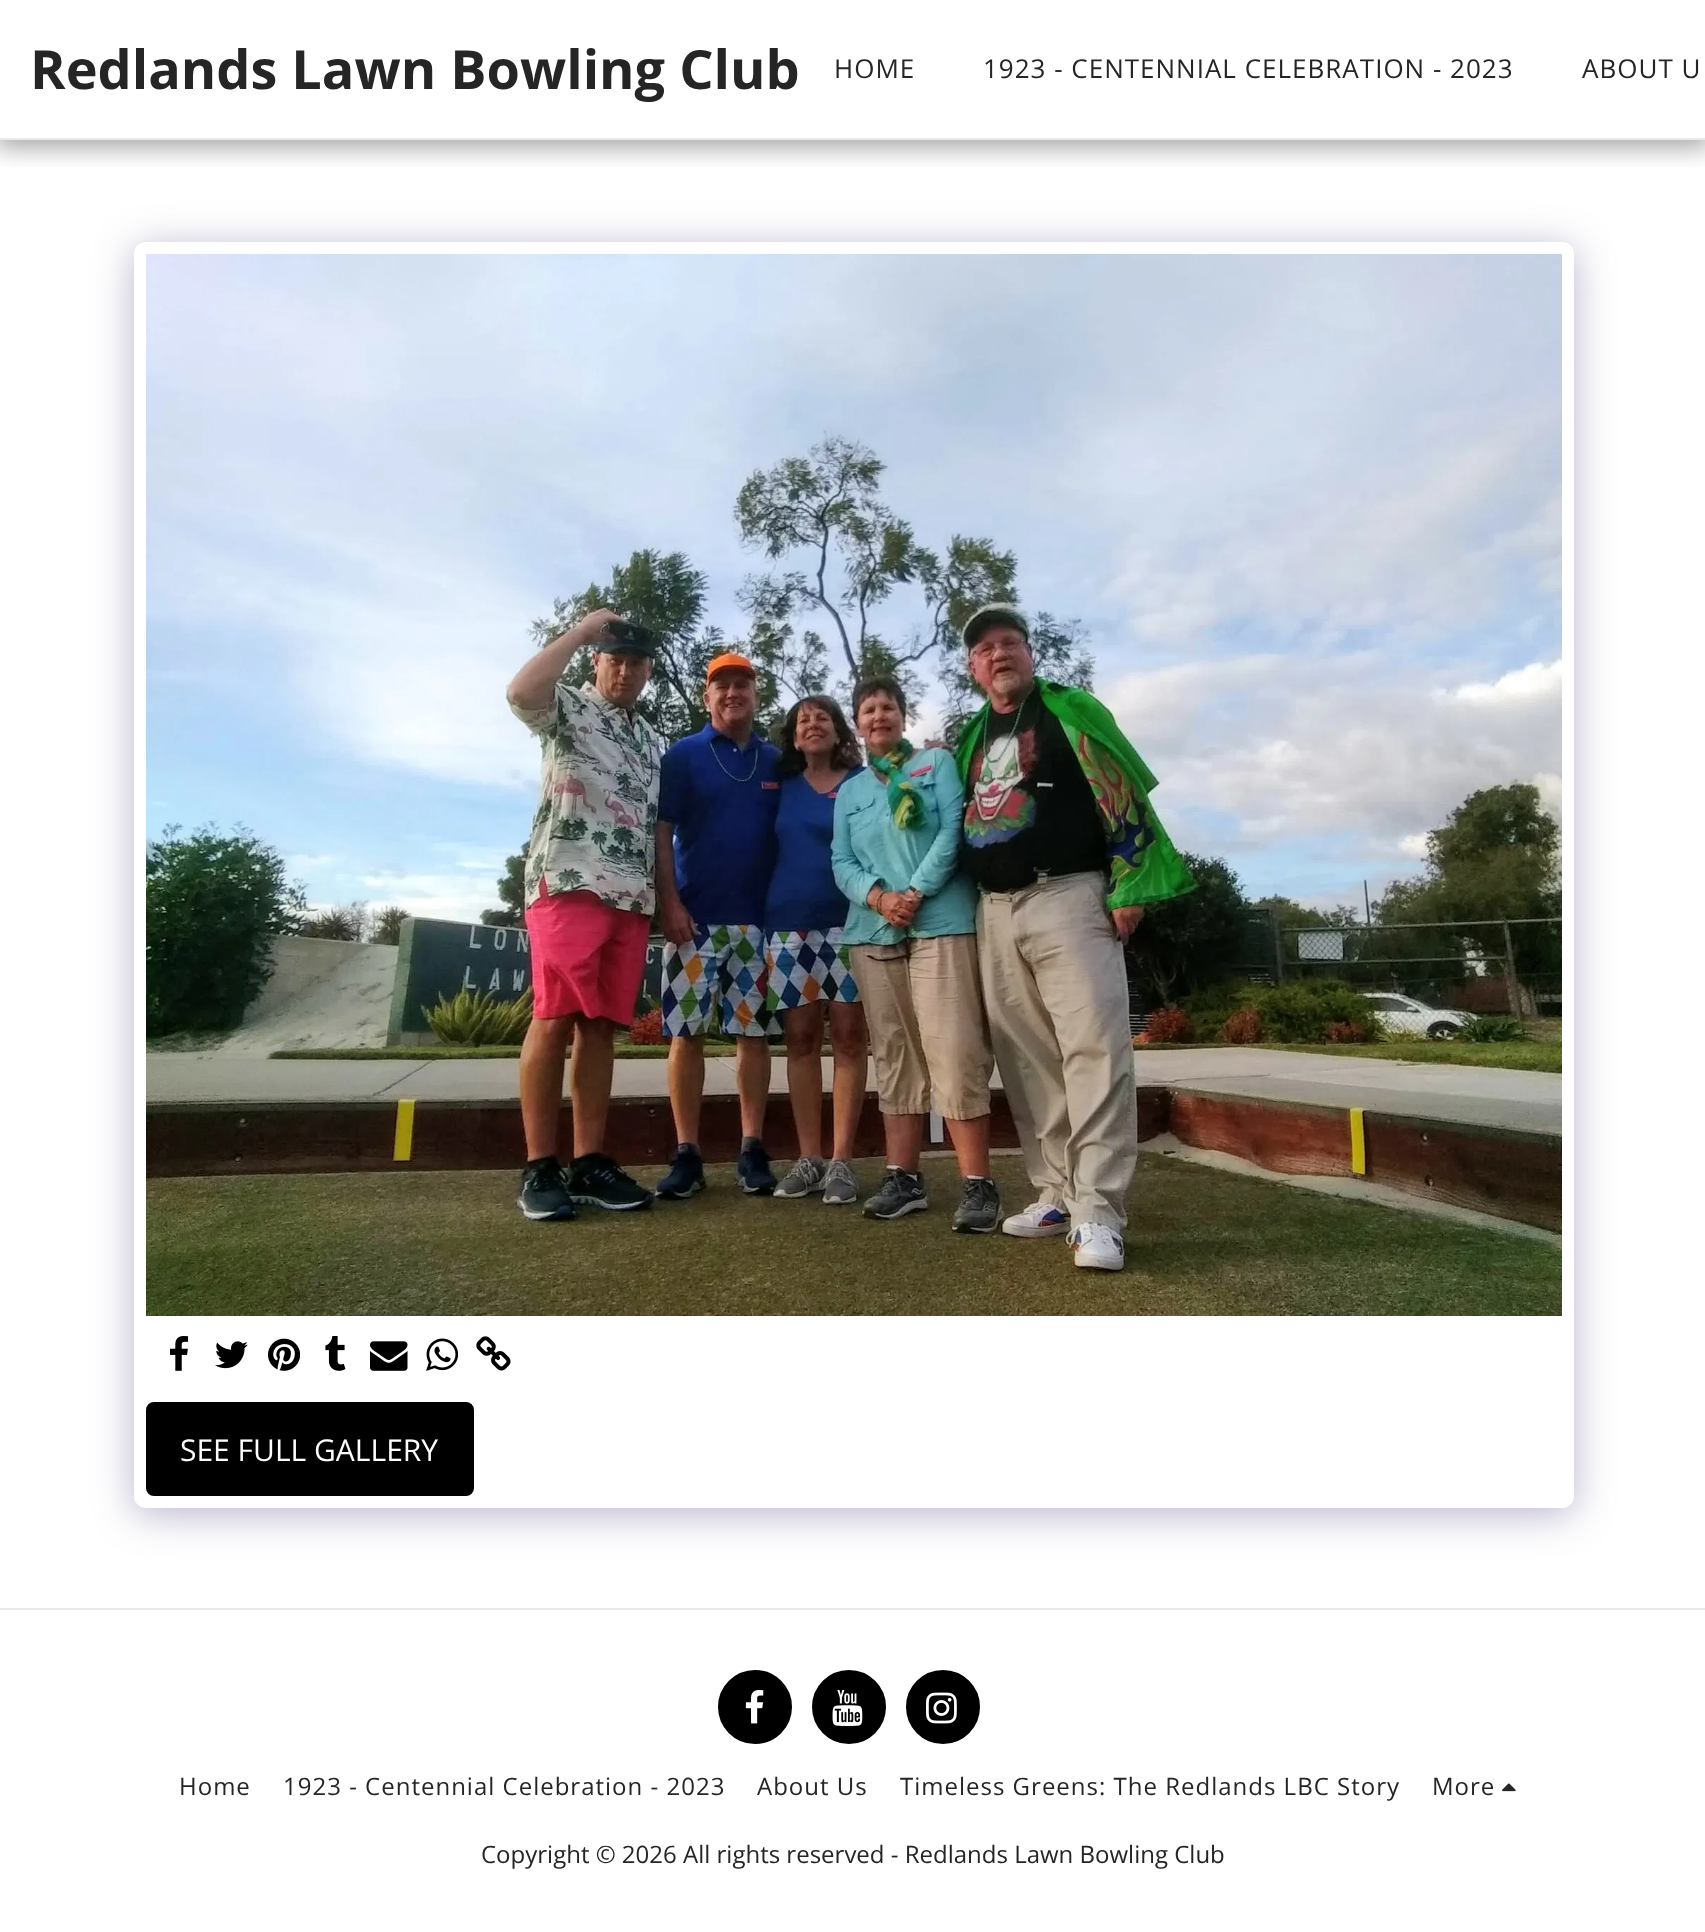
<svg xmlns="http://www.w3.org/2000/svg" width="1705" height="1932">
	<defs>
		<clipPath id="clip1"><rect x="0" y="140" width="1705" height="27" /></clipPath>
	</defs>
	<rect width="100%" height="100%" fill="#FFFFFF" />
	<g clip-path="url(#clip1)">
		<rect x="-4" y="0" width="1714" height="148" fill="#000000" fill-opacity="0.35" filter="blur(12px)" />
	</g>
	<rect x="0" y="138" width="1705" height="2" fill="#EBEBEB" />
	<text x="30" y="89" font-family="Open Sans" font-size="54" font-weight="700" fill="#252525">Redlands Lawn Bowling Club</text>
	<g font-family="Open Sans" font-size="26" letter-spacing="1" fill="#252525">
		<text x="834" y="78">HOME</text>
		<text x="983" y="78">1923 - CENTENNIAL CELEBRATION - 2023</text>
		<text x="1582" y="78">ABOUT U</text>
	</g>
	<rect x="134" y="248" width="1440" height="1266" rx="12" fill="#4D3F7A" fill-opacity="0.4" filter="blur(20px)" />
	<rect x="134" y="242" width="1440" height="1266" rx="12" fill="#FFFFFF" />
	<image x="146" y="254" width="1416" height="1062" href="assets/img1.png" />
	<image x="170" y="1336" width="19" height="35" href="assets/img2.png" />
	<image x="215" y="1341" width="33" height="28" href="assets/img3.png" />
	<image x="268" y="1338" width="32" height="33" href="assets/img4.png" />
	<image x="325" y="1336" width="21" height="35" href="assets/img5.png" />
	<image x="370" y="1341" width="38" height="30" href="assets/img6.png" />
	<image x="426" y="1338" width="32" height="33" href="assets/img7.png" />
	<image x="476" y="1336" width="35" height="35" href="assets/img8.png" />
	<rect x="147" y="1403" width="326" height="92" rx="7" fill="#000000" stroke="#000000" stroke-width="2" />
	<text x="180" y="1461" font-family="Open Sans" font-size="30" fill="#FFFFFF">SEE FULL GALLERY</text>
	<rect x="0" y="1608" width="1705" height="2" fill="#EBEBEB" />
	<circle cx="755" cy="1707" r="36" fill="#000000" stroke="#000000" stroke-width="2" />
	<image x="745" y="1690" width="19" height="34" href="assets/img9.png" />
	<circle cx="849" cy="1707" r="36" fill="#000000" stroke="#000000" stroke-width="2" />
	<image x="832" y="1690" width="31" height="36" href="assets/img10.png" />
	<circle cx="943" cy="1707" r="36" fill="#000000" stroke="#000000" stroke-width="2" />
	<image x="926" y="1692" width="31" height="32" href="assets/img11.png" />
	<g font-family="Open Sans" font-size="24" letter-spacing="1" fill="#252525">
		<text x="179" y="1795">Home</text>
		<text x="283" y="1795">1923 - Centennial Celebration - 2023</text>
		<text x="757" y="1795">About Us</text>
		<text x="900" y="1795">Timeless Greens: The Redlands LBC Story</text>
		<text x="1432" y="1795">More</text>
	</g>
	<image x="1502" y="1783" width="14" height="9" href="assets/img12.png" />
	<text x="481" y="1863" font-family="Open Sans" font-size="24" fill="#252525">Copyright © 2026 All rights reserved - Redlands Lawn Bowling Club</text>
</svg>
